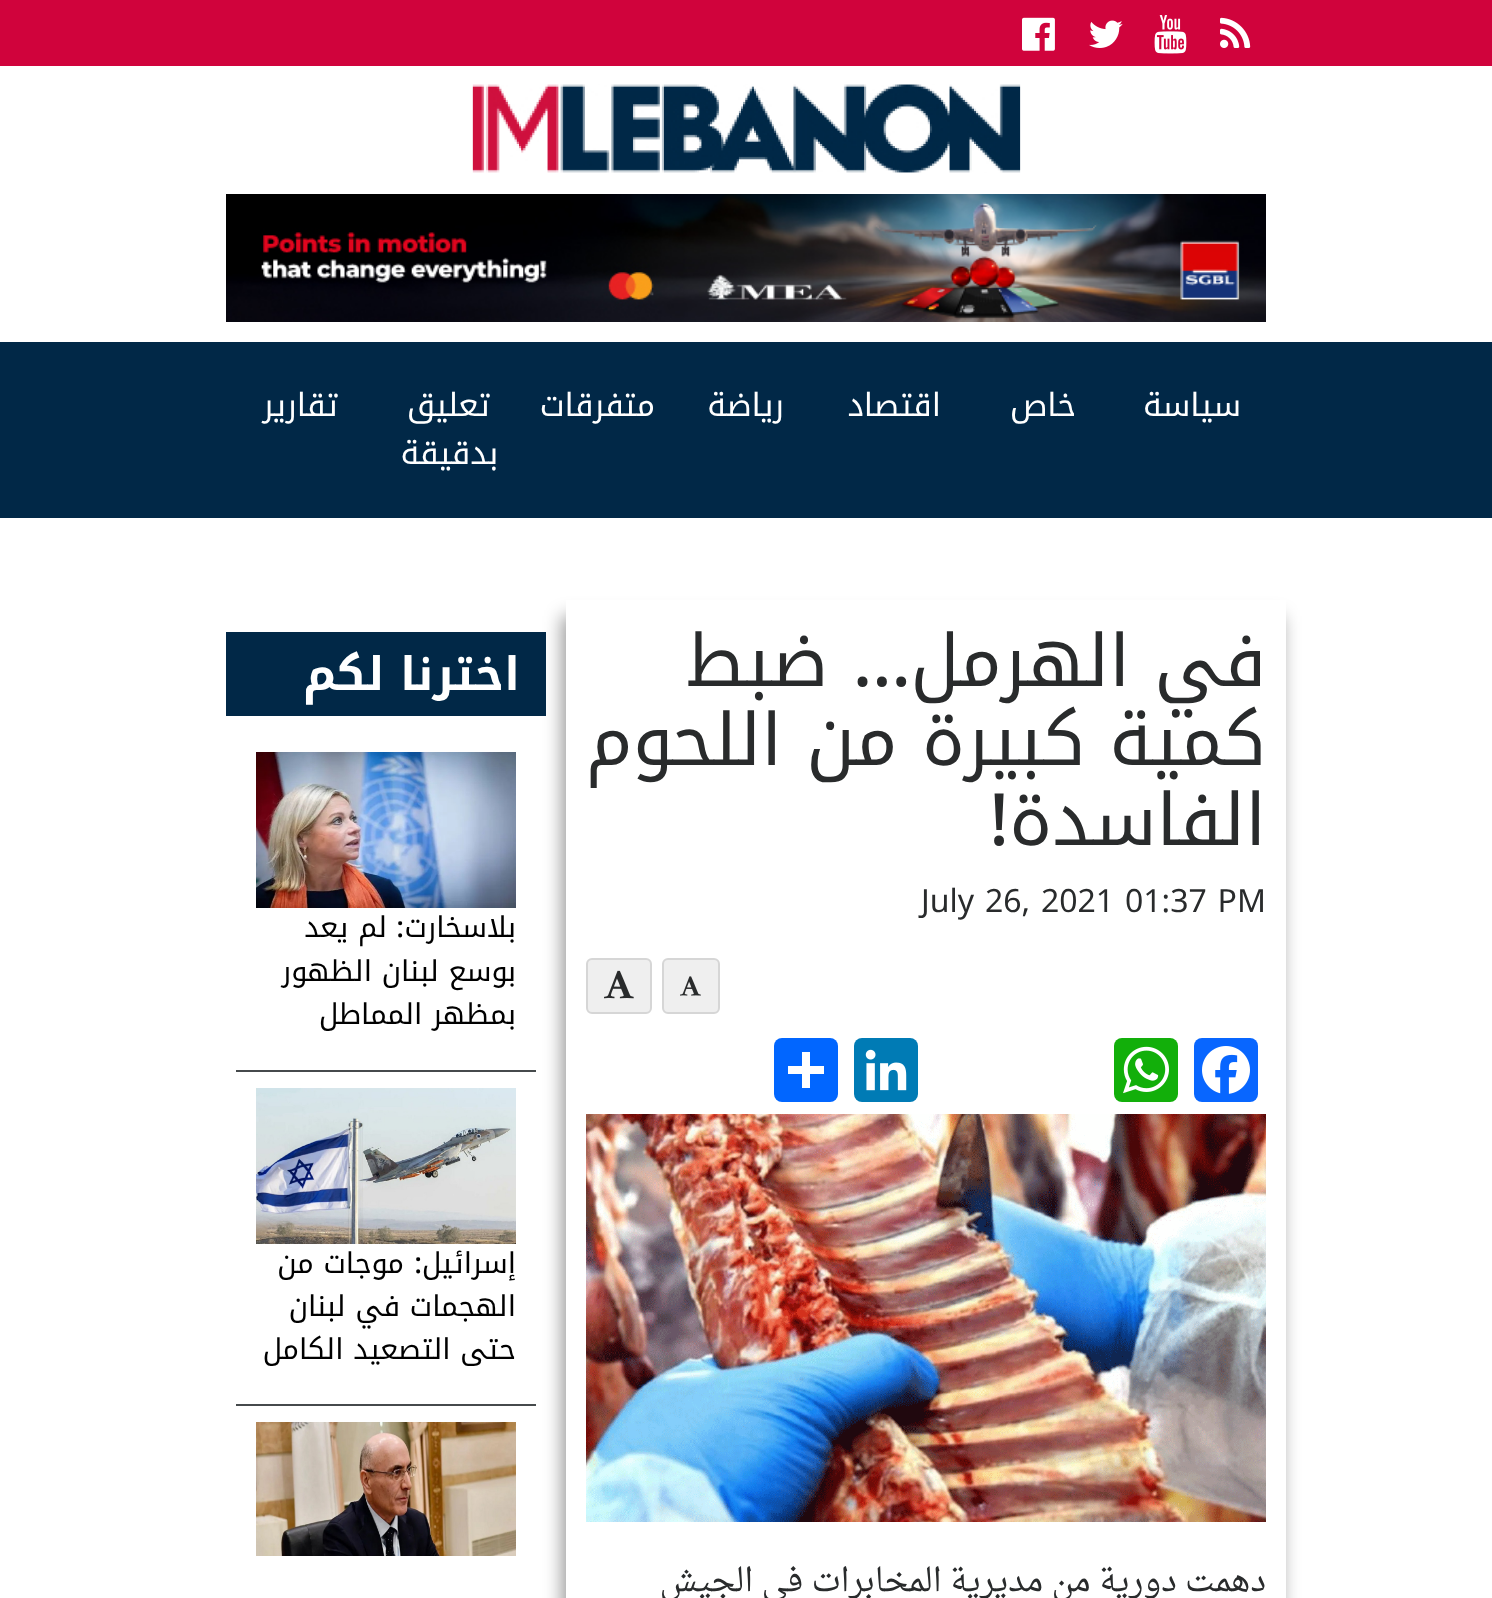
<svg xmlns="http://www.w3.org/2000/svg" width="1492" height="1598">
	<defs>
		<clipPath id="clip1"><path d="M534 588H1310V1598H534ZM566 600H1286V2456H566Z" clip-rule="evenodd" /></clipPath>
	</defs>
	<rect width="100%" height="100%" fill="#FFFFFF" />
	<rect x="0" y="0" width="1492" height="66" fill="#D0033C" />
	<image x="1220" y="17" width="31" height="31" href="assets/img1.png" />
	<image x="1154" y="15" width="33" height="39" href="assets/img2.png" />
	<image x="1089" y="20" width="34" height="28" href="assets/img3.png" />
	<image x="1022" y="17" width="33" height="34" href="assets/img4.png" />
	<image x="472" y="84" width="549" height="89" href="assets/img5.png" />
	<image x="226" y="194" width="1040" height="128" href="assets/img6.png" />
	<rect x="0" y="342" width="1492" height="176" fill="#012847" />
	<g font-family="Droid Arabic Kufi" font-size="32" direction="rtl" fill="#FFFFFF">
		<text x="1241" y="416">سياسة</text>
		<text x="1076" y="416">خاص</text>
		<text x="941" y="416">اقتصاد</text>
		<text x="784" y="416">رياضة</text>
		<text x="655" y="416">متفرقات</text>
		<text x="490" y="416">تعليق</text>
		<text x="498" y="464">بدقيقة</text>
		<text x="338" y="416">تقارير</text>
	</g>
	<g clip-path="url(#clip1)">
		<rect x="562" y="616" width="720" height="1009" fill="#000000" fill-opacity="0.4" filter="blur(9px)" />
	</g>
	<text x="1266" y="686" font-family="Droid Arabic Kufi" font-size="72" direction="rtl" fill="#292B2C">في الهرمل</text>
	<text x="911" y="686" font-family="Noto Sans" font-size="72" font-weight="500" direction="rtl" fill="#292B2C">…</text>
	<g font-family="Droid Arabic Kufi" font-size="72" direction="rtl" fill="#292B2C">
		<text x="828" y="686">ضبط</text>
		<text x="1266" y="765">كمية كبيرة من اللحوم</text>
		<text x="1266" y="845">الفاسدة</text>
	</g>
	<text x="1009" y="845" font-family="Noto Sans" font-size="72" font-weight="500" direction="rtl" fill="#292B2C">!</text>
	<text x="921" y="912" word-spacing="2.5" font-family="Noto Sans" font-size="32" fill="#292B2C">July 26, 2021 01:37 PM</text>
	<rect x="663" y="959" width="56" height="54" rx="5" fill="#EFEFEF" stroke="#D6D6D6" stroke-width="2" />
	<image x="680" y="976" width="21" height="20" href="assets/img7.png" />
	<rect x="587" y="959" width="64" height="54" rx="5" fill="#EFEFEF" stroke="#D6D6D6" stroke-width="2" />
	<image x="604" y="970" width="30" height="29" href="assets/img8.png" />
	<rect x="1194" y="1038" width="64" height="64" rx="8" fill="#0866FF" />
	<image x="1202" y="1046" width="48" height="48" href="assets/img9.png" />
	<rect x="1114" y="1038" width="64" height="64" rx="8" fill="#12AF0A" />
	<image x="1123" y="1046" width="46" height="48" href="assets/img10.png" />
	<rect x="854" y="1038" width="64" height="64" rx="8" fill="#007BB5" />
	<image x="865" y="1049" width="42" height="42" href="assets/img11.png" />
	<rect x="774" y="1038" width="64" height="64" rx="8" fill="#0166FF" />
	<rect x="802" y="1052" width="8" height="36" fill="#FFFFFF" />
	<rect x="788" y="1066" width="36" height="8" fill="#FFFFFF" />
	<image x="586" y="1114" width="680" height="408" href="assets/img12.png" />
	<text x="1266" y="1591" font-family="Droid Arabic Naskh" font-size="32" direction="rtl" fill="#292B2C">دهمت دورية من مديرية المخابرات في الجيش</text>
	<rect x="226" y="632" width="320" height="84" fill="#012847" />
	<text x="520" y="690" font-family="Droid Arabic Kufi" font-size="46" font-weight="700" direction="rtl" fill="#FFFFFF">اخترنا لكم</text>
	<rect x="236" y="1070" width="300" height="2" fill="#464A4C" />
	<image x="256" y="752" width="260" height="156" href="assets/img13.png" />
	<text x="516" y="937" font-family="Droid Arabic Kufi" font-size="28.75" direction="rtl" fill="#000000">بلاسخارت</text>
	<text x="404" y="937" font-family="Noto Sans" font-size="28.75" font-weight="500" direction="rtl" fill="#000000">:</text>
	<g font-family="Droid Arabic Kufi" font-size="28.75" direction="rtl" fill="#000000">
		<text x="387" y="937">لم يعد</text>
		<text x="516" y="981">بوسع لبنان الظهور</text>
		<text x="516" y="1024">بمظهر المماطل</text>
	</g>
	<rect x="236" y="1404" width="300" height="2" fill="#464A4C" />
	<image x="256" y="1088" width="260" height="156" href="assets/img14.png" />
	<text x="516" y="1273" font-family="Droid Arabic Kufi" font-size="28.75" direction="rtl" fill="#000000">إسرائيل</text>
	<text x="422" y="1273" font-family="Noto Sans" font-size="28.75" font-weight="500" direction="rtl" fill="#000000">:</text>
	<g font-family="Droid Arabic Kufi" font-size="28.75" direction="rtl" fill="#000000">
		<text x="404" y="1273">موجات من</text>
		<text x="516" y="1316">الهجمات في لبنان</text>
		<text x="516" y="1359">حتى التصعيد الكامل</text>
	</g>
	<image x="256" y="1422" width="260" height="134" href="assets/img15.png" />
</svg>
